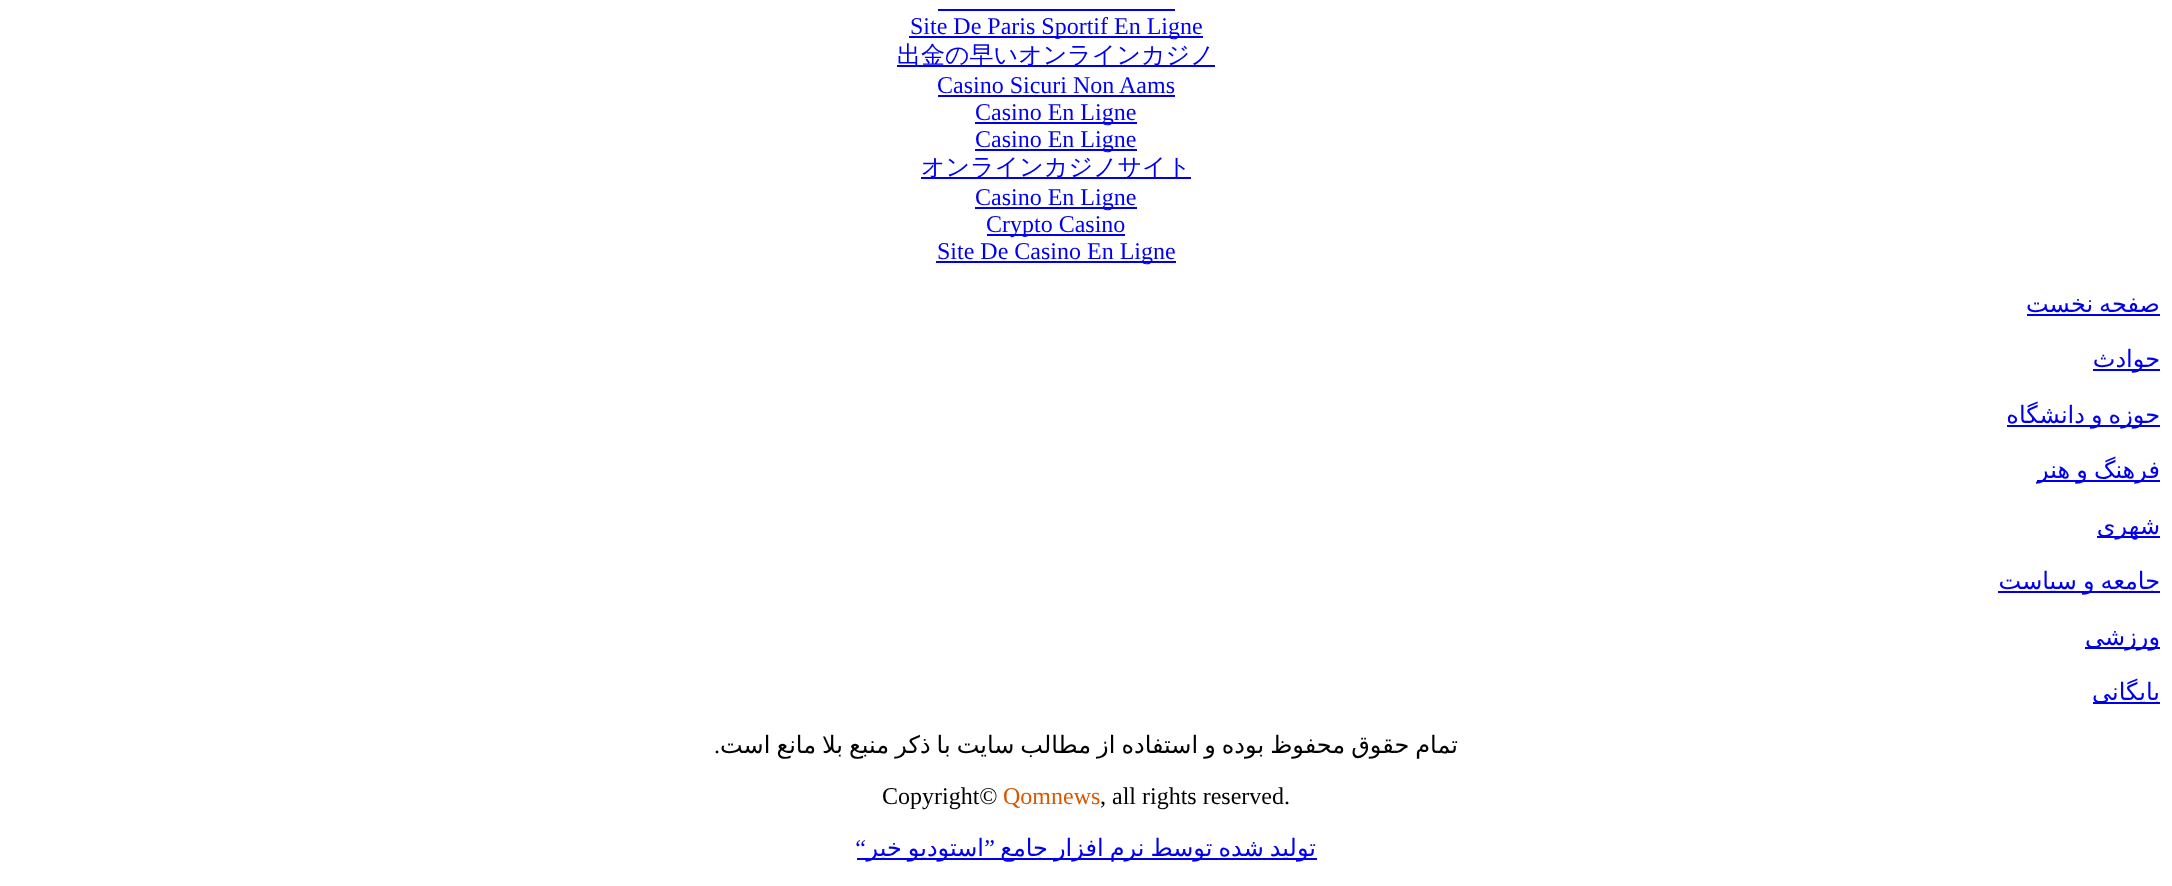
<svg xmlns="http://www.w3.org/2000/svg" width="2172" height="886">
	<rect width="100%" height="100%" fill="#FFFFFF" />
	<rect x="938" y="9" width="237" height="2" fill="#0000EE" />
	<rect x="909" y="36" width="294" height="2" fill="#0000EE" />
	<text x="910" y="34" font-family="Liberation Serif" font-size="24" fill="#0000EE">Site De Paris Sportif En Ligne</text>
	<rect x="897" y="65" width="318" height="2" fill="#0000EE" />
	<text x="897" y="63" font-family="WenQuanYi Zen Hei" font-size="24" font-weight="500" fill="#0000EE">出金の早いオンラインカジノ</text>
	<text x="937" y="93" font-family="Liberation Serif" font-size="24" fill="#0000EE">Casino Sicuri Non Aams</text>
	<rect x="938" y="95" width="237" height="2" fill="#0000EE" />
	<rect x="975" y="122" width="162" height="2" fill="#0000EE" />
	<text x="975" y="120" font-family="Liberation Serif" font-size="24" fill="#0000EE">Casino En Ligne</text>
	<rect x="975" y="149" width="162" height="2" fill="#0000EE" />
	<text x="975" y="147" font-family="Liberation Serif" font-size="24" fill="#0000EE">Casino En Ligne</text>
	<rect x="921" y="177" width="270" height="2" fill="#0000EE" />
	<text x="921" y="175" font-family="WenQuanYi Zen Hei" font-size="24" font-weight="500" fill="#0000EE">オンラインカジノサイト</text>
	<rect x="975" y="207" width="162" height="2" fill="#0000EE" />
	<text x="975" y="205" font-family="Liberation Serif" font-size="24" fill="#0000EE">Casino En Ligne</text>
	<rect x="987" y="234" width="138" height="2" fill="#0000EE" />
	<text x="986" y="232" font-family="Liberation Serif" font-size="24" fill="#0000EE">Crypto Casino</text>
	<rect x="936" y="261" width="240" height="2" fill="#0000EE" />
	<text x="937" y="259" font-family="Liberation Serif" font-size="24" fill="#0000EE">Site De Casino En Ligne</text>
	<text x="2160" y="312" word-spacing="-1.6" font-family="DejaVu Sans" font-size="24" direction="rtl" fill="#0000EE">صفحه نخست</text>
	<rect x="2027" y="314" width="133" height="2" fill="#0000EE" />
	<rect x="2093" y="369" width="67" height="2" fill="#0000EE" />
	<text x="2160" y="367" font-family="DejaVu Sans" font-size="24" direction="rtl" fill="#0000EE">حوادث</text>
	<rect x="2007" y="425" width="153" height="2" fill="#0000EE" />
	<text x="2160" y="423" word-spacing="-1.6" font-family="DejaVu Sans" font-size="24" direction="rtl" fill="#0000EE">حوزه و دانشگاه</text>
	<rect x="2037" y="480" width="123" height="2" fill="#0000EE" />
	<text x="2160" y="478" word-spacing="-1.6" font-family="DejaVu Sans" font-size="24" direction="rtl" fill="#0000EE">فرهنگ و هنر</text>
	<rect x="2097" y="536" width="63" height="2" fill="#0000EE" />
	<text x="2160" y="534" font-family="DejaVu Sans" font-size="24" direction="rtl" fill="#0000EE">شهری</text>
	<rect x="1998" y="591" width="162" height="2" fill="#0000EE" />
	<text x="2160" y="589" word-spacing="-1.6" font-family="DejaVu Sans" font-size="24" direction="rtl" fill="#0000EE">جامعه و سیاست</text>
	<rect x="2085" y="647" width="75" height="2" fill="#0000EE" />
	<text x="2160" y="645" font-family="DejaVu Sans" font-size="24" direction="rtl" fill="#0000EE">ورزشی</text>
	<rect x="2093" y="702" width="67" height="2" fill="#0000EE" />
	<text x="2160" y="700" font-family="DejaVu Sans" font-size="24" direction="rtl" fill="#0000EE">بایگانی</text>
	<text x="720" y="753" font-family="Liberation Serif" font-size="24" direction="rtl" fill="#000000">.</text>
	<text x="1458" y="753" word-spacing="-1.6" font-family="DejaVu Sans" font-size="24" direction="rtl" fill="#000000">تمام حقوق محفوظ بوده و استفاده از مطالب سایت با ذکر منبع بلا مانع است</text>
	<text x="882" y="804" font-family="Liberation Serif" font-size="24" fill="#000000">Copyright©</text>
	<text x="1003" y="804" font-family="Liberation Serif" font-size="24" fill="#D85701">Qomnews</text>
	<g font-family="Liberation Serif" font-size="24" fill="#000000">
		<text x="1100" y="804">, all rights reserved</text>
		<text x="1284" y="804">.</text>
	</g>
	<text x="866" y="856" font-family="Liberation Serif" font-size="24" direction="rtl" fill="#0000EE">“</text>
	<rect x="857" y="858" width="460" height="2" fill="#0000EE" />
	<text x="984" y="856" word-spacing="-1.6" font-family="DejaVu Sans" font-size="24" direction="rtl" fill="#0000EE">استوديو خبر</text>
	<text x="995" y="856" font-family="Liberation Serif" font-size="24" direction="rtl" fill="#0000EE">”</text>
	<text x="1316" y="856" word-spacing="-1.6" font-family="DejaVu Sans" font-size="24" direction="rtl" fill="#0000EE">توليد شده توسط نرم افزار جامع</text>
</svg>
